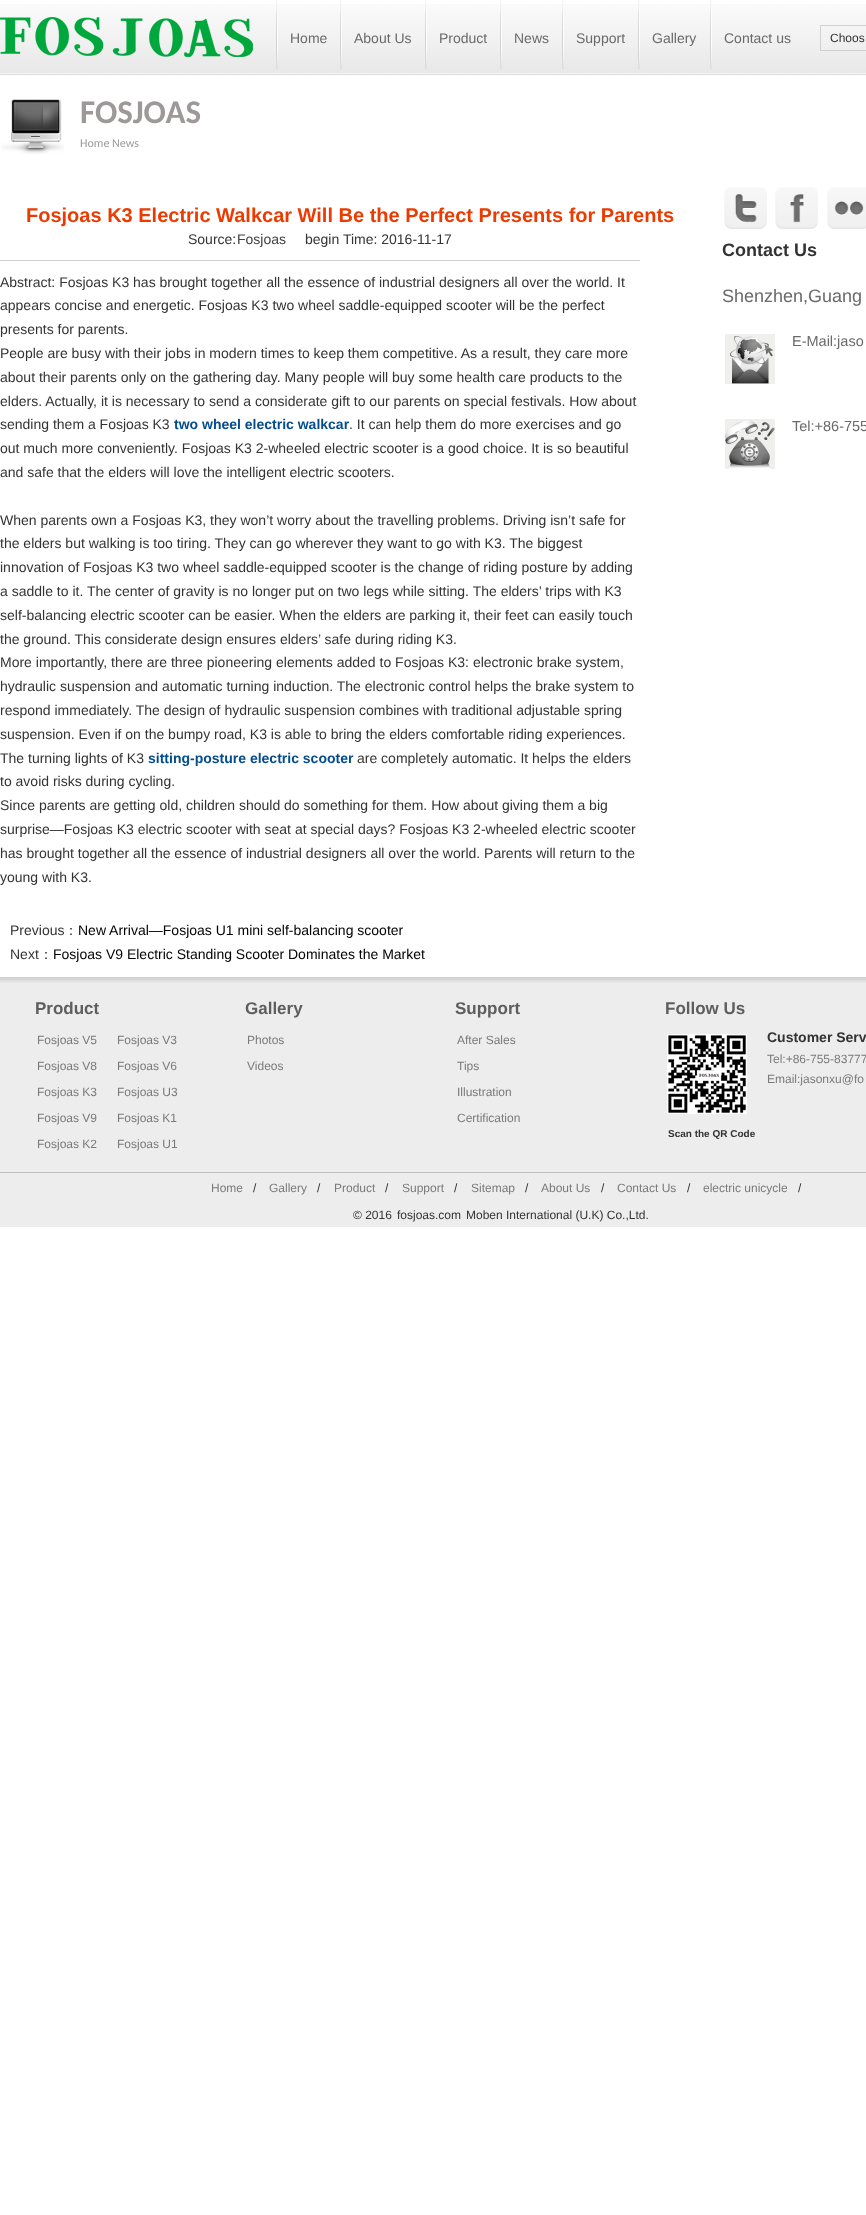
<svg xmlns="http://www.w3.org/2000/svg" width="866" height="2215">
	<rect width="100%" height="100%" fill="#FFFFFF" />
	<image x="0" y="4" width="866" height="71" href="assets/img1.png" />
	<image x="0" y="17" width="253" height="40" href="assets/img2.png" />
	<image x="276" y="0" width="2" height="69" href="assets/img3.png" />
	<text x="290" y="43" font-family="Liberation Sans" font-size="14" fill="#6B6A6A">Home</text>
	<image x="340" y="0" width="2" height="69" href="assets/img3.png" />
	<text x="354" y="43" font-family="Liberation Sans" font-size="14" fill="#6B6A6A">About Us</text>
	<image x="425" y="0" width="2" height="69" href="assets/img3.png" />
	<text x="439" y="43" font-family="Liberation Sans" font-size="14" fill="#6B6A6A">Product</text>
	<image x="500" y="0" width="2" height="69" href="assets/img3.png" />
	<text x="514" y="43" font-family="Liberation Sans" font-size="14" fill="#6B6A6A">News</text>
	<image x="562" y="0" width="2" height="69" href="assets/img3.png" />
	<text x="576" y="43" font-family="Liberation Sans" font-size="14" fill="#6B6A6A">Support</text>
	<image x="638" y="0" width="2" height="69" href="assets/img3.png" />
	<text x="652" y="43" font-family="Liberation Sans" font-size="14" fill="#6B6A6A">Gallery</text>
	<image x="710" y="0" width="2" height="69" href="assets/img3.png" />
	<text x="724" y="43" font-family="Liberation Sans" font-size="14" fill="#6B6A6A">Contact us</text>
	<rect x="820.5" y="25.5" width="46" height="25" fill="none" stroke="#D0D0D0" />
	<text x="830" y="42" font-family="Liberation Sans" font-size="12" fill="#333333">Choos</text>
	<image x="1" y="99" width="63" height="55" href="assets/img4.png" />
	<text x="80" y="123" font-family="Carlito" font-size="33" font-weight="700" fill="#9E9999">FOSJOAS</text>
	<text x="80" y="147" font-family="Carlito" font-size="12" fill="#9E9999">Home News</text>
	<rect x="0" y="260" width="640" height="1" fill="#D1D1D1" />
	<text x="26" y="222" font-family="Liberation Sans" font-size="20" font-weight="700" fill="#EC3B00">Fosjoas K3 Electric Walkcar Will Be the Perfect Presents for Parents</text>
	<text x="188" y="244" font-family="Liberation Sans" font-size="14" fill="#333333">Source:</text>
	<text x="237" y="244" font-family="Liberation Sans" font-size="14" fill="#404040">Fosjoas</text>
	<g font-family="Liberation Sans" font-size="14" fill="#333333">
		<text x="305" y="244">begin Time: 2016-11-17</text>
		<text x="0" y="287">Abstract: Fosjoas K3 has brought together all the essence of industrial designers all over the world. It</text>
		<text x="0" y="310">appears concise and energetic. Fosjoas K3 two wheel saddle-equipped scooter will be the perfect</text>
		<text x="0" y="334">presents for parents.</text>
		<text x="0" y="358">People are busy with their jobs in modern times to keep them competitive. As a result, they care more</text>
		<text x="0" y="382">about their parents only on the gathering day. Many people will buy some health care products to the</text>
		<text x="0" y="406">elders. Actually, it is necessary to send a considerate gift to our parents on special festivals. How about</text>
		<text x="0" y="429">sending them a Fosjoas K3</text>
	</g>
	<text x="174" y="429" font-family="Liberation Sans" font-size="14" font-weight="700" fill="#034D8E">two wheel electric walkcar</text>
	<g font-family="Liberation Sans" font-size="14" fill="#333333">
		<text x="349" y="429">. It can help them do more exercises and go</text>
		<text x="0" y="453">out much more conveniently. Fosjoas K3 2-wheeled electric scooter is a good choice. It is so beautiful</text>
		<text x="0" y="477">and safe that the elders will love the intelligent electric scooters.</text>
		<text x="0" y="525">When parents own a Fosjoas K3, they won’t worry about the travelling problems. Driving isn’t safe for</text>
		<text x="0" y="548">the elders but walking is too tiring. They can go wherever they want to go with K3. The biggest</text>
		<text x="0" y="572">innovation of Fosjoas K3 two wheel saddle-equipped scooter is the change of riding posture by adding</text>
		<text x="0" y="596">a saddle to it. The center of gravity is no longer put on two legs while sitting. The elders’ trips with K3</text>
		<text x="0" y="620">self-balancing electric scooter can be easier. When the elders are parking it, their feet can easily touch</text>
		<text x="0" y="644">the ground. This considerate design ensures elders’ safe during riding K3.</text>
		<text x="0" y="667">More importantly, there are three pioneering elements added to Fosjoas K3: electronic brake system,</text>
		<text x="0" y="691">hydraulic suspension and automatic turning induction. The electronic control helps the brake system to</text>
		<text x="0" y="715">respond immediately. The design of hydraulic suspension combines with traditional adjustable spring</text>
		<text x="0" y="739">suspension. Even if on the bumpy road, K3 is able to bring the elders comfortable riding experiences.</text>
		<text x="0" y="763">The turning lights of K3</text>
	</g>
	<text x="148" y="763" font-family="Liberation Sans" font-size="14" font-weight="700" fill="#034D8E">sitting-posture electric scooter</text>
	<g font-family="Liberation Sans" font-size="14" fill="#333333">
		<text x="357" y="763">are completely automatic. It helps the elders</text>
		<text x="0" y="786">to avoid risks during cycling.</text>
		<text x="0" y="810">Since parents are getting old, children should do something for them. How about giving them a big</text>
		<text x="0" y="834">surprise—Fosjoas K3 electric scooter with seat at special days? Fosjoas K3 2-wheeled electric scooter</text>
		<text x="0" y="858">has brought together all the essence of industrial designers all over the world. Parents will return to the</text>
		<text x="0" y="882">young with K3.</text>
		<text x="10" y="935">Previous</text>
	</g>
	<text x="64" y="935" font-family="WenQuanYi Zen Hei" font-size="14" font-weight="500" fill="#333333">：</text>
	<text x="78" y="935" font-family="Liberation Sans" font-size="14" fill="#000000">New Arrival—Fosjoas U1 mini self-balancing scooter</text>
	<text x="10" y="959" font-family="Liberation Sans" font-size="14" fill="#333333">Next</text>
	<text x="39" y="959" font-family="WenQuanYi Zen Hei" font-size="14" font-weight="500" fill="#333333">：</text>
	<text x="53" y="959" font-family="Liberation Sans" font-size="14" fill="#000000">Fosjoas V9 Electric Standing Scooter Dominates the Market</text>
	<image x="724" y="187" width="43" height="42" href="assets/img5.png" />
	<image x="775" y="187" width="43" height="42" href="assets/img6.png" />
	<image x="827" y="187" width="39" height="42" href="assets/img7.png" />
	<text x="722" y="256" font-family="Liberation Sans" font-size="18" font-weight="700" fill="#333333">Contact Us</text>
	<text x="722" y="302" font-family="Liberation Sans" font-size="18" fill="#6B6A6A">Shenzhen,Guang</text>
	<image x="725" y="334" width="50" height="50" href="assets/img8.png" />
	<text x="792" y="346" font-family="Liberation Sans" font-size="14.5" fill="#6B6A6A">E-Mail:jaso</text>
	<image x="725" y="419" width="50" height="50" href="assets/img9.png" />
	<text x="792" y="431" font-family="Liberation Sans" font-size="14.5" fill="#6B6A6A">Tel:+86-755</text>
	<rect x="0" y="983" width="866" height="244" fill="#EDEDED" />
	<image x="0" y="977" width="866" height="6" href="assets/img10.png" />
	<rect x="0" y="1172" width="866" height="1" fill="#BFBFBF" />
	<text x="35" y="1014" font-family="Liberation Sans" font-size="17" font-weight="700" fill="#5E5E5E">Product</text>
	<g font-family="Liberation Sans" font-size="12" fill="#7A7A7A">
		<text x="37" y="1044">Fosjoas V5</text>
		<text x="117" y="1044">Fosjoas V3</text>
		<text x="37" y="1070">Fosjoas V8</text>
		<text x="117" y="1070">Fosjoas V6</text>
		<text x="37" y="1096">Fosjoas K3</text>
		<text x="117" y="1096">Fosjoas U3</text>
		<text x="37" y="1122">Fosjoas V9</text>
		<text x="117" y="1122">Fosjoas K1</text>
		<text x="37" y="1148">Fosjoas K2</text>
		<text x="117" y="1148">Fosjoas U1</text>
	</g>
	<text x="245" y="1014" font-family="Liberation Sans" font-size="17" font-weight="700" fill="#5E5E5E">Gallery</text>
	<g font-family="Liberation Sans" font-size="12" fill="#7A7A7A">
		<text x="247" y="1044">Photos</text>
		<text x="247" y="1070">Videos</text>
	</g>
	<text x="455" y="1014" font-family="Liberation Sans" font-size="17" font-weight="700" fill="#5E5E5E">Support</text>
	<g font-family="Liberation Sans" font-size="12" fill="#7A7A7A">
		<text x="457" y="1044">After Sales</text>
		<text x="457" y="1070">Tips</text>
		<text x="457" y="1096">Illustration</text>
		<text x="457" y="1122">Certification</text>
	</g>
	<text x="665" y="1014" font-family="Liberation Sans" font-size="17" font-weight="700" fill="#5E5E5E">Follow Us</text>
	<text x="767" y="1042" font-family="Liberation Sans" font-size="14" font-weight="700" fill="#333333">Customer Serv</text>
	<g font-family="Liberation Sans" font-size="12" fill="#7A7A7A">
		<text x="767" y="1063">Tel:+86-755-83777</text>
		<text x="767" y="1083">Email:jasonxu@fo</text>
	</g>
	<image x="667" y="1034" width="80" height="80" href="assets/img11.png" />
	<text x="668" y="1137" font-family="Liberation Sans" font-size="10" font-weight="700" fill="#333333">Scan the QR Code</text>
	<text x="211" y="1192" font-family="Liberation Sans" font-size="12" fill="#7A7A7A">Home</text>
	<text x="253" y="1192" font-family="Liberation Sans" font-size="12" fill="#333333">/</text>
	<text x="269" y="1192" font-family="Liberation Sans" font-size="12" fill="#7A7A7A">Gallery</text>
	<text x="317" y="1192" font-family="Liberation Sans" font-size="12" fill="#333333">/</text>
	<text x="334" y="1192" font-family="Liberation Sans" font-size="12" fill="#7A7A7A">Product</text>
	<text x="385" y="1192" font-family="Liberation Sans" font-size="12" fill="#333333">/</text>
	<text x="402" y="1192" font-family="Liberation Sans" font-size="12" fill="#7A7A7A">Support</text>
	<text x="454" y="1192" font-family="Liberation Sans" font-size="12" fill="#333333">/</text>
	<text x="471" y="1192" font-family="Liberation Sans" font-size="12" fill="#7A7A7A">Sitemap</text>
	<text x="525" y="1192" font-family="Liberation Sans" font-size="12" fill="#333333">/</text>
	<text x="541" y="1192" font-family="Liberation Sans" font-size="12" fill="#7A7A7A">About Us</text>
	<text x="601" y="1192" font-family="Liberation Sans" font-size="12" fill="#333333">/</text>
	<text x="617" y="1192" font-family="Liberation Sans" font-size="12" fill="#7A7A7A">Contact Us</text>
	<text x="687" y="1192" font-family="Liberation Sans" font-size="12" fill="#333333">/</text>
	<text x="703" y="1192" font-family="Liberation Sans" font-size="12" fill="#7A7A7A">electric unicycle</text>
	<g font-family="Liberation Sans" font-size="12" fill="#333333">
		<text x="798" y="1192">/</text>
		<text x="353" y="1219">© 2016</text>
		<text x="397" y="1219">fosjoas.com</text>
		<text x="466" y="1219">Moben International (U.K) Co.,Ltd.</text>
	</g>
</svg>
